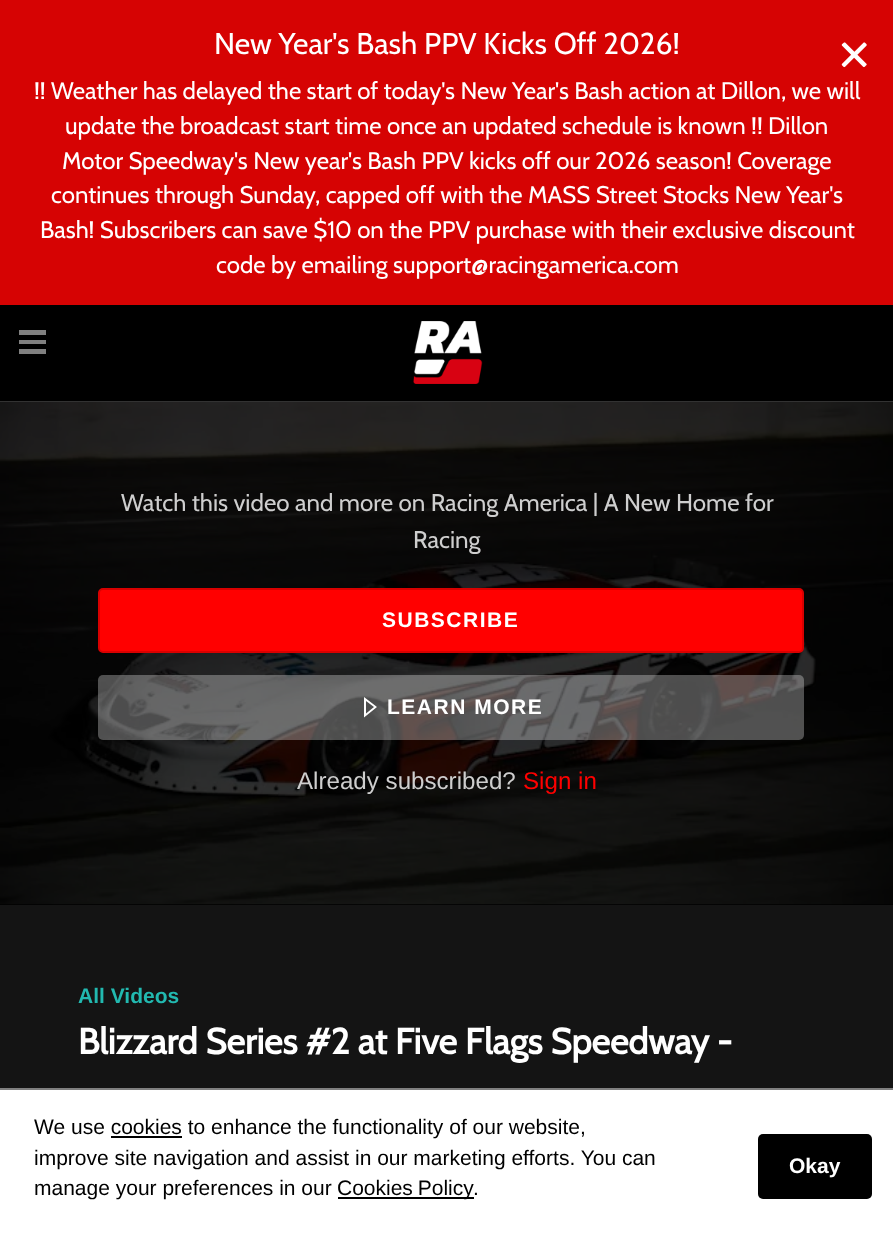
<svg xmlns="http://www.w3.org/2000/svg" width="893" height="1248">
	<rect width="100%" height="100%" fill="#141414" />
	<rect x="0" y="0" width="893" height="305" fill="#D60303" />
	<text x="214" y="54" font-family="Cabin" font-size="30" fill="#FFFFFF">New Year's Bash PPV Kicks Off 2026!</text>
	<g font-family="Cabin" font-size="24" fill="#FFFFFF">
		<text x="34" y="99">!! Weather has delayed the start of today's New Year's Bash action at Dillon, we will</text>
		<text x="65" y="134">update the broadcast start time once an updated schedule is known !! Dillon</text>
		<text x="62" y="169">Motor Speedway's New year's Bash PPV kicks off our 2026 season! Coverage</text>
		<text x="51" y="203">continues through Sunday, capped off with the MASS Street Stocks New Year's</text>
		<text x="40" y="238">Bash! Subscribers can save $10 on the PPV purchase with their exclusive discount</text>
		<text x="216" y="273">code by emailing support@racingamerica.com</text>
	</g>
	<image x="841" y="42" width="26" height="26" href="assets/img1.png" />
	<rect x="0" y="305" width="893" height="96" fill="#000000" />
	<rect x="0" y="401" width="893" height="1" fill="#323232" />
	<rect x="19" y="330" width="27" height="5" fill="#808080" />
	<rect x="19" y="340" width="27" height="4" fill="#808080" />
	<rect x="19" y="349" width="27" height="5" fill="#808080" />
	<image x="413" y="321" width="70" height="63" href="assets/img2.png" />
	<rect x="0" y="904" width="893" height="1" fill="#000000" />
	<image x="0" y="402" width="893" height="503" href="assets/img3.png" />
	<g font-family="Cabin" font-size="24.15" fill="#CECECE">
		<text x="121" y="511">Watch this video and more on Racing America | A New Home for</text>
		<text x="413" y="548">Racing</text>
	</g>
	<rect x="99" y="589" width="704" height="63" rx="4" fill="#FF0000" stroke="#D90000" stroke-width="2" />
	<text x="382" y="627" font-family="Liberation Sans" font-size="21" font-weight="700" letter-spacing="1.5" fill="#FFFFFF">SUBSCRIBE</text>
	<rect x="98" y="675" width="706" height="65" rx="5" fill="#FFFFFF" fill-opacity="0.3" />
	<path d="M364 717.5V697L377 707ZM366 701V713.5L374 707Z" fill="#FFFFFF" />
	<text x="387" y="714" font-family="Liberation Sans" font-size="21" font-weight="700" letter-spacing="1.5" fill="#FFFFFF">LEARN MORE</text>
	<text x="297" y="789" font-family="Liberation Sans" font-size="24.15" fill="#CECECE">Already subscribed?</text>
	<text x="523" y="789" font-family="Liberation Sans" font-size="24.15" fill="#FF0000">Sign in</text>
	<text x="78" y="1003" font-family="Liberation Sans" font-size="21" font-weight="700" fill="#22B9B0">All Videos</text>
	<text x="78" y="1054" font-family="Cabin" font-size="36" font-weight="700" fill="#FFFFFF">Blizzard Series #2 at Five Flags Speedway -</text>
	<rect x="0" y="1090" width="893" height="158" fill="#FFFFFF" />
	<rect x="0" y="1088" width="893" height="2" fill="#808080" />
	<text x="34" y="1134" font-family="Liberation Sans" font-size="21" fill="#000000">We use cookies to enhance the functionality of our website,</text>
	<rect x="111" y="1136" width="71" height="2" fill="#000000" />
	<g font-family="Liberation Sans" font-size="21" fill="#000000">
		<text x="34" y="1165">improve site navigation and assist in our marketing efforts. You can</text>
		<text x="34" y="1195">manage your preferences in our</text>
	</g>
	<rect x="338" y="1197" width="136" height="2" fill="#000000" />
	<g font-family="Liberation Sans" font-size="21" fill="#000000">
		<text x="337" y="1195" word-spacing="-1">Cookies Policy</text>
		<text x="473" y="1195">.</text>
	</g>
	<rect x="758" y="1134" width="114" height="65" rx="5" fill="#000000" />
	<text x="789" y="1173" font-family="Liberation Sans" font-size="21" font-weight="700" fill="#FFFFFF">Okay</text>
</svg>
